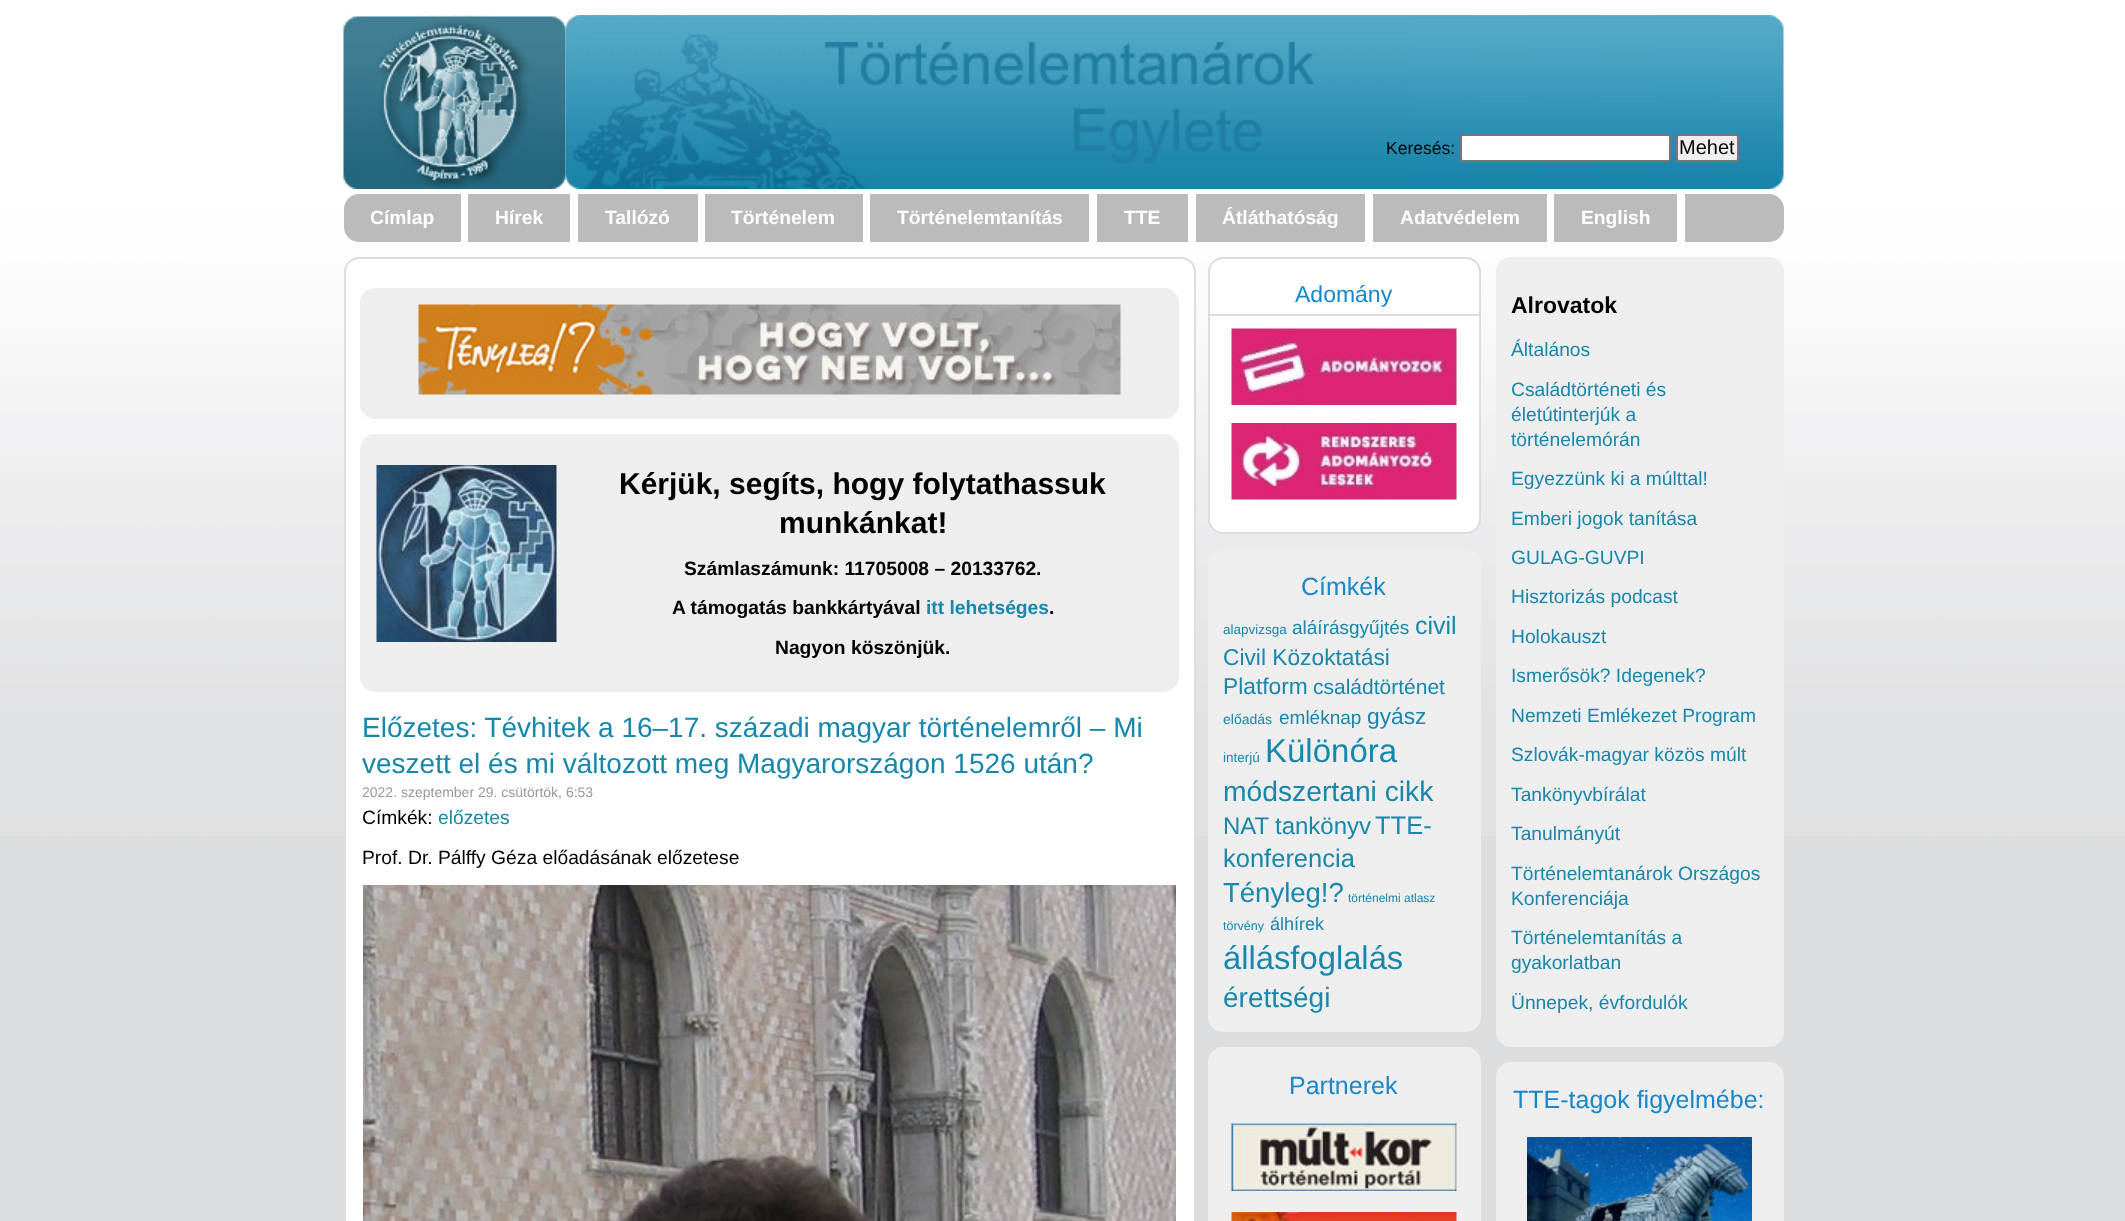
<svg xmlns="http://www.w3.org/2000/svg" width="2125" height="1221">
	<rect width="100%" height="100%" fill="#DCDDDF" />
	<image x="0" y="0" width="2125" height="836" href="assets/img1.png" />
	<image x="1409" y="15" width="375" height="174" href="assets/img2.png" />
	<image x="343" y="15" width="223" height="174" href="assets/img3.png" />
	<image x="565" y="15" width="844" height="174" href="assets/img4.png" />
	<text x="1386" y="154" font-family="Liberation Sans" font-size="17.5" fill="#000000">Keresés:</text>
	<rect x="1461" y="135" width="209" height="26" rx="2" fill="#FFFFFF" stroke="#767676" stroke-width="2" />
	<rect x="1677" y="135" width="61" height="26" rx="2" fill="#EFEFEF" stroke="#767676" stroke-width="2" />
	<text x="1679" y="154" font-family="Liberation Sans" font-size="20" fill="#000000">Mehet</text>
	<rect x="344" y="194" width="1440" height="48" rx="15" fill="#BBBBBB" />
	<rect x="461" y="194" width="7" height="48" fill="#FFFFFF" />
	<text x="370" y="224" font-family="Liberation Sans" font-size="19.25" font-weight="700" fill="#FFFFFF">Címlap</text>
	<rect x="570" y="194" width="8" height="48" fill="#FFFFFF" />
	<text x="495" y="224" font-family="Liberation Sans" font-size="19.25" font-weight="700" fill="#FFFFFF">Hírek</text>
	<rect x="698" y="194" width="7" height="48" fill="#FFFFFF" />
	<text x="605" y="224" font-family="Liberation Sans" font-size="19.25" font-weight="700" fill="#FFFFFF">Tallózó</text>
	<rect x="863" y="194" width="7" height="48" fill="#FFFFFF" />
	<text x="731" y="224" font-family="Liberation Sans" font-size="19.25" font-weight="700" fill="#FFFFFF">Történelem</text>
	<rect x="1089" y="194" width="8" height="48" fill="#FFFFFF" />
	<text x="897" y="224" font-family="Liberation Sans" font-size="19.25" font-weight="700" fill="#FFFFFF">Történelemtanítás</text>
	<rect x="1188" y="194" width="8" height="48" fill="#FFFFFF" />
	<text x="1124" y="224" font-family="Liberation Sans" font-size="19.25" font-weight="700" fill="#FFFFFF">TTE</text>
	<rect x="1365" y="194" width="8" height="48" fill="#FFFFFF" />
	<text x="1222" y="224" font-family="Liberation Sans" font-size="19.25" font-weight="700" fill="#FFFFFF">Átláthatóság</text>
	<rect x="1547" y="194" width="7" height="48" fill="#FFFFFF" />
	<text x="1400" y="224" font-family="Liberation Sans" font-size="19.25" font-weight="700" fill="#FFFFFF">Adatvédelem</text>
	<rect x="1677" y="194" width="8" height="48" fill="#FFFFFF" />
	<text x="1581" y="224" font-family="Liberation Sans" font-size="19.25" font-weight="700" fill="#FFFFFF">English</text>
	<rect x="345" y="258" width="850" height="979" rx="14" fill="#FFFFFF" stroke="#DDDDDD" stroke-width="2" />
	<rect x="361" y="289" width="817" height="129" rx="14" fill="#EEEEEE" stroke="#EEEEEE" stroke-width="2" />
	<image x="418" y="304" width="703" height="91" href="assets/img5.png" />
	<rect x="361" y="435" width="817" height="256" rx="14" fill="#EEEEEE" stroke="#EEEEEE" stroke-width="2" />
	<image x="376" y="465" width="181" height="177" href="assets/img6.png" />
	<g font-family="Liberation Sans" font-size="30" font-weight="700" fill="#000000">
		<text x="619" y="494">Kérjük, segíts, hogy folytathassuk</text>
		<text x="779" y="533">munkánkat!</text>
	</g>
	<g font-family="Liberation Sans" font-size="19.25" font-weight="700" fill="#000000">
		<text x="684" y="575">Számlaszámunk: 11705008 – 20133762.</text>
		<text x="672" y="614">A támogatás bankkártyával</text>
	</g>
	<text x="926" y="614" font-family="Liberation Sans" font-size="19.25" font-weight="700" fill="#1787AB">itt lehetséges</text>
	<g font-family="Liberation Sans" font-size="19.25" font-weight="700" fill="#000000">
		<text x="1049" y="614">.</text>
		<text x="775" y="654">Nagyon köszönjük.</text>
	</g>
	<g font-family="Liberation Sans" font-size="28" fill="#1787AB">
		<text x="362" y="737">Előzetes: Tévhitek a 16–17. századi magyar történelemről – Mi</text>
		<text x="362" y="773">veszett el és mi változott meg Magyarországon 1526 után?</text>
	</g>
	<text x="362" y="797" font-family="Liberation Sans" font-size="14" fill="#999999">2022. szeptember 29. csütörtök, 6:53</text>
	<text x="362" y="824" font-family="Liberation Sans" font-size="19.25" fill="#000000">Címkék:</text>
	<text x="438" y="824" font-family="Liberation Sans" font-size="19.25" fill="#1787AB">előzetes</text>
	<text x="362" y="864" font-family="Liberation Sans" font-size="19.25" fill="#000000">Prof. Dr. Pálffy Géza előadásának előzetese</text>
	<image x="363" y="885" width="813" height="336" href="assets/img7.png" />
	<rect x="1209" y="258" width="271" height="275" rx="14" fill="#FFFFFF" stroke="#DDDDDD" stroke-width="2" />
	<rect x="1209" y="314" width="270" height="2" fill="#DDDDDD" />
	<text x="1295" y="302" font-family="Liberation Sans" font-size="23" fill="#1787C8">Adomány</text>
	<image x="1231" y="328" width="226" height="77" href="assets/img8.png" />
	<image x="1231" y="423" width="226" height="77" href="assets/img9.png" />
	<rect x="1209" y="550" width="271" height="481" rx="14" fill="#EEEEEE" stroke="#EEEEEE" stroke-width="2" />
	<text x="1301" y="595" font-family="Liberation Sans" font-size="25" fill="#1787C8">Címkék</text>
	<text x="1223" y="634" font-family="Liberation Sans" font-size="13.5" fill="#1787AB">alapvizsga</text>
	<text x="1292" y="634" font-family="Liberation Sans" font-size="19" fill="#1787AB">aláírásgyűjtés</text>
	<text x="1415" y="634" font-family="Liberation Sans" font-size="25" fill="#1787AB">civil</text>
	<g font-family="Liberation Sans" font-size="22.75" fill="#1787AB">
		<text x="1223" y="665">Civil Közoktatási</text>
		<text x="1223" y="694">Platform</text>
	</g>
	<text x="1313" y="694" font-family="Liberation Sans" font-size="21" fill="#1787AB">családtörténet</text>
	<text x="1223" y="724" font-family="Liberation Sans" font-size="14" fill="#1787AB">előadás</text>
	<text x="1279" y="724" font-family="Liberation Sans" font-size="19" fill="#1787AB">emléknap</text>
	<text x="1367" y="724" font-family="Liberation Sans" font-size="22.75" fill="#1787AB">gyász</text>
	<text x="1223" y="762" font-family="Liberation Sans" font-size="13.5" fill="#1787AB">interjú</text>
	<text x="1265" y="762" font-family="Liberation Sans" font-size="33" fill="#1787AB">Különóra</text>
	<text x="1223" y="801" font-family="Liberation Sans" font-size="28.25" fill="#1787AB">módszertani cikk</text>
	<g font-family="Liberation Sans" font-size="24" fill="#1787AB">
		<text x="1223" y="834">NAT</text>
		<text x="1275" y="834">tankönyv</text>
	</g>
	<g font-family="Liberation Sans" font-size="25.5" fill="#1787AB">
		<text x="1375" y="834">TTE-</text>
		<text x="1223" y="867">konferencia</text>
	</g>
	<text x="1223" y="902" font-family="Liberation Sans" font-size="27.5" fill="#1787AB">Tényleg!?</text>
	<text x="1348" y="902" font-family="Liberation Sans" font-size="12" fill="#1787AB">történelmi atlasz</text>
	<text x="1223" y="930" font-family="Liberation Sans" font-size="12.5" fill="#1787AB">törvény</text>
	<text x="1270" y="930" font-family="Liberation Sans" font-size="18" fill="#1787AB">álhírek</text>
	<text x="1223" y="969" font-family="Liberation Sans" font-size="32.75" fill="#1787AB">állásfoglalás</text>
	<text x="1223" y="1007" font-family="Liberation Sans" font-size="28" fill="#1787AB">érettségi</text>
	<rect x="1209" y="1048" width="271" height="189" rx="14" fill="#EEEEEE" stroke="#EEEEEE" stroke-width="2" />
	<text x="1289" y="1094" font-family="Liberation Sans" font-size="25" fill="#1787C8">Partnerek</text>
	<image x="1231" y="1123" width="226" height="68" href="assets/img10.png" />
	<image x="1231" y="1212" width="226" height="9" href="assets/img11.png" />
	<rect x="1497" y="258" width="286" height="788" rx="14" fill="#EEEEEE" stroke="#EEEEEE" stroke-width="2" />
	<text x="1511" y="313" font-family="Liberation Sans" font-size="23" font-weight="700" fill="#000000">Alrovatok</text>
	<g font-family="Liberation Sans" font-size="19.25" fill="#1787AB">
		<text x="1511" y="356">Általános</text>
		<text x="1511" y="396">Családtörténeti és</text>
		<text x="1511" y="421">életútinterjúk a</text>
		<text x="1511" y="446">történelemórán</text>
		<text x="1511" y="485">Egyezzünk ki a múlttal!</text>
		<text x="1511" y="525">Emberi jogok tanítása</text>
		<text x="1511" y="564">GULAG-GUVPI</text>
		<text x="1511" y="603">Hisztorizás podcast</text>
		<text x="1511" y="643">Holokauszt</text>
		<text x="1511" y="682">Ismerősök? Idegenek?</text>
		<text x="1511" y="722">Nemzeti Emlékezet Program</text>
		<text x="1511" y="761">Szlovák-magyar közös múlt</text>
		<text x="1511" y="801">Tankönyvbírálat</text>
		<text x="1511" y="840">Tanulmányút</text>
		<text x="1511" y="880">Történelemtanárok Országos</text>
		<text x="1511" y="905">Konferenciája</text>
		<text x="1511" y="944">Történelemtanítás a</text>
		<text x="1511" y="969">gyakorlatban</text>
		<text x="1511" y="1009">Ünnepek, évfordulók</text>
	</g>
	<rect x="1497" y="1063" width="286" height="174" rx="14" fill="#EEEEEE" stroke="#EEEEEE" stroke-width="2" />
	<text x="1513" y="1108" font-family="Liberation Sans" font-size="25" fill="#1787C8">TTE-tagok figyelmébe:</text>
	<image x="1527" y="1137" width="225" height="84" href="assets/img12.png" />
</svg>
